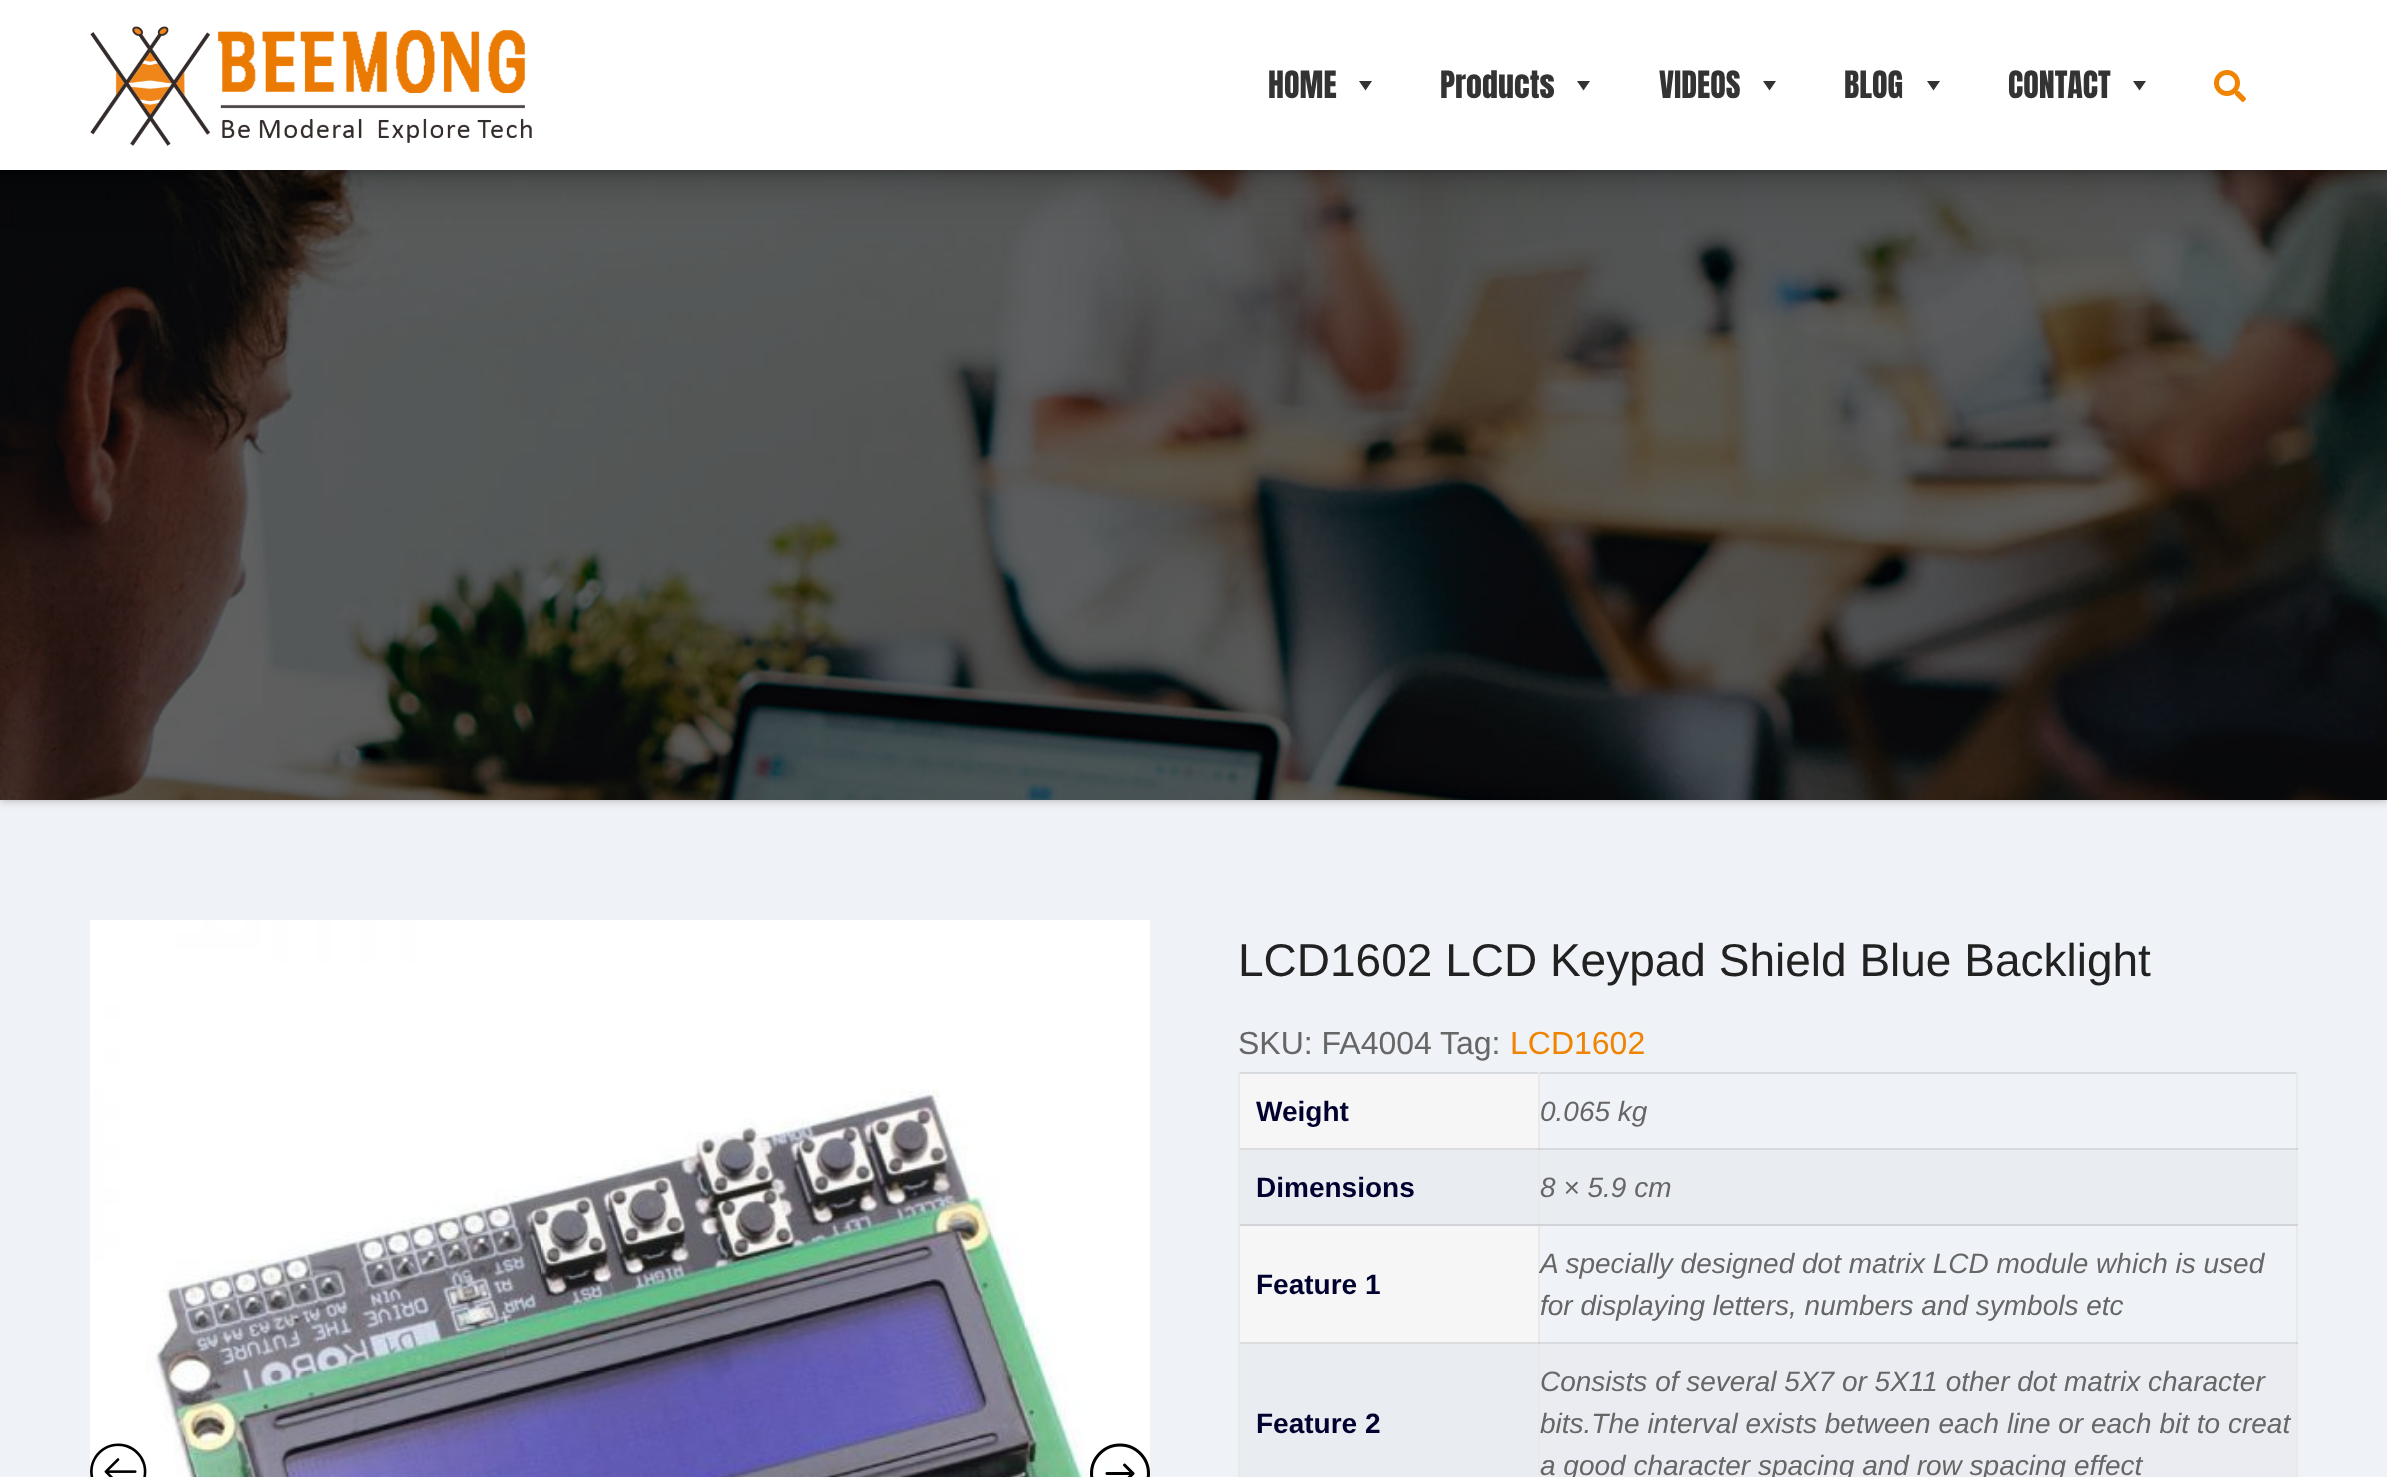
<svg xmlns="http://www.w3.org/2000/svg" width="2387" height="1477">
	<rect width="100%" height="100%" fill="#EFF2F7" />
	<rect x="1538" y="1148" width="760" height="2" fill="#D7DADE" />
	<rect x="1538" y="1342" width="760" height="2" fill="#D7DADE" />
	<rect x="0" y="0" width="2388" height="800" fill="#AAAAAA" filter="blur(5px)" />
	<image x="0" y="170" width="2387" height="630" href="assets/img1.png" />
	<rect x="0" y="32" width="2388" height="170" fill="#000000" fill-opacity="0.07" filter="blur(16px)" />
	<rect x="0" y="16" width="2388" height="170" fill="#000000" fill-opacity="0.07" filter="blur(8px)" />
	<rect x="0" y="8" width="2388" height="170" fill="#000000" fill-opacity="0.07" filter="blur(4px)" />
	<rect x="0" y="4" width="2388" height="170" fill="#000000" fill-opacity="0.07" filter="blur(2px)" />
	<rect x="0" y="2" width="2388" height="170" fill="#000000" fill-opacity="0.07" filter="blur(1px)" />
	<rect x="0" y="0" width="2387" height="170" fill="#FFFFFF" />
	<image x="90" y="26" width="442" height="120" href="assets/img2.png" />
	<text x="1268" y="98" font-family="Anton" font-size="32" fill="#333333">HOME</text>
	<path d="M1372 81L1365.5 90.5L1359 81Z" fill="#333333" />
	<text x="1440" y="98" font-family="Anton" font-size="32" fill="#333333">Products</text>
	<path d="M1590 81L1583.5 90.5L1577 81Z" fill="#333333" />
	<text x="1659" y="98" font-family="Anton" font-size="32" fill="#333333">VIDEOS</text>
	<path d="M1776 81L1769.5 90.5L1763 81Z" fill="#333333" />
	<text x="1844" y="98" font-family="Anton" font-size="32" fill="#333333">BLOG</text>
	<path d="M1940 81L1933.5 90.5L1927 81Z" fill="#333333" />
	<text x="2008" y="98" font-family="Anton" font-size="32" fill="#333333">CONTACT</text>
	<path d="M2146 81L2139.5 90.5L2133 81Z" fill="#333333" />
	<image x="2214" y="70" width="32" height="32" href="assets/img3.png" />
	<image x="90" y="920" width="1060" height="557" href="assets/img4.png" />
	<image x="90" y="1443" width="57" height="34" href="assets/img5.png" />
	<image x="1090" y="1443" width="60" height="34" href="assets/img6.png" />
	<text x="1238" y="976" font-family="Liberation Sans" font-size="46" fill="#212121">LCD1602 LCD Keypad Shield Blue Backlight</text>
	<g font-family="Liberation Sans" font-size="32" fill="#666666">
		<text x="1238" y="1054">SKU: FA4004</text>
		<text x="1440" y="1054">Tag:</text>
	</g>
	<text x="1510" y="1054" font-family="Liberation Sans" font-size="32" fill="#F08300">LCD1602</text>
	<rect x="1238" y="1072" width="1060" height="2" fill="#D7DADE" />
	<rect x="1240" y="1074" width="298" height="74" fill="#F6F6F6" />
	<rect x="1240" y="1148" width="300" height="2" fill="#DDDDDD" />
	<text x="1256" y="1121" font-family="Liberation Sans" font-size="28" font-weight="700" fill="#01012F">Weight</text>
	<rect x="1240" y="1224" width="1058" height="2" fill="#D2D4D9" />
	<rect x="2296" y="1072" width="2" height="405" fill="#E9E9E9" />
	<rect x="2296" y="1148" width="2" height="2" fill="#D2D2D2" />
	<rect x="1240" y="1342" width="300" height="2" fill="#DDDDDD" />
	<rect x="1538" y="1072" width="2" height="405" fill="#E9E9E9" />
	<rect x="1538" y="1148" width="2" height="2" fill="#D2D2D2" />
	<text x="1540" y="1121" font-family="Liberation Sans" font-size="28" font-style="italic" fill="#666666">0.065 kg</text>
	<rect x="1240" y="1150" width="298" height="74" fill="#E9ECF1" />
	<text x="1256" y="1197" font-family="Liberation Sans" font-size="28" font-weight="700" fill="#01012F">Dimensions</text>
	<rect x="1540" y="1150" width="756" height="74" fill="#E9ECF1" />
	<rect x="2296" y="1224" width="2" height="2" fill="#D2D2D2" />
	<rect x="1538" y="1224" width="2" height="2" fill="#D2D2D2" />
	<text x="1540" y="1197" font-family="Liberation Sans" font-size="28" font-style="italic" fill="#666666">8 × 5.9 cm</text>
	<rect x="1240" y="1226" width="298" height="116" fill="#F6F6F6" />
	<text x="1256" y="1294" font-family="Liberation Sans" font-size="28" font-weight="700" fill="#01012F">Feature 1</text>
	<rect x="2296" y="1342" width="2" height="2" fill="#D2D2D2" />
	<rect x="1538" y="1342" width="2" height="2" fill="#D2D2D2" />
	<g font-family="Liberation Sans" font-size="28" font-style="italic" fill="#666666">
		<text x="1540" y="1273">A specially designed dot matrix LCD module which is used</text>
		<text x="1540" y="1315">for displaying letters, numbers and symbols etc</text>
	</g>
	<rect x="1240" y="1344" width="298" height="133" fill="#E9ECF1" />
	<rect x="1238" y="1072" width="2" height="405" fill="#E9E9E9" />
	<text x="1256" y="1433" font-family="Liberation Sans" font-size="28" font-weight="700" fill="#01012F">Feature 2</text>
	<rect x="1540" y="1344" width="756" height="133" fill="#EAECF1" />
	<g font-family="Liberation Sans" font-size="28" font-style="italic" fill="#666666">
		<text x="1540" y="1391">Consists of several 5X7 or 5X11 other dot matrix character</text>
		<text x="1540" y="1433">bits.The interval exists between each line or each bit to creat</text>
		<text x="1540" y="1475">a good character spacing and row spacing effect</text>
	</g>
</svg>
